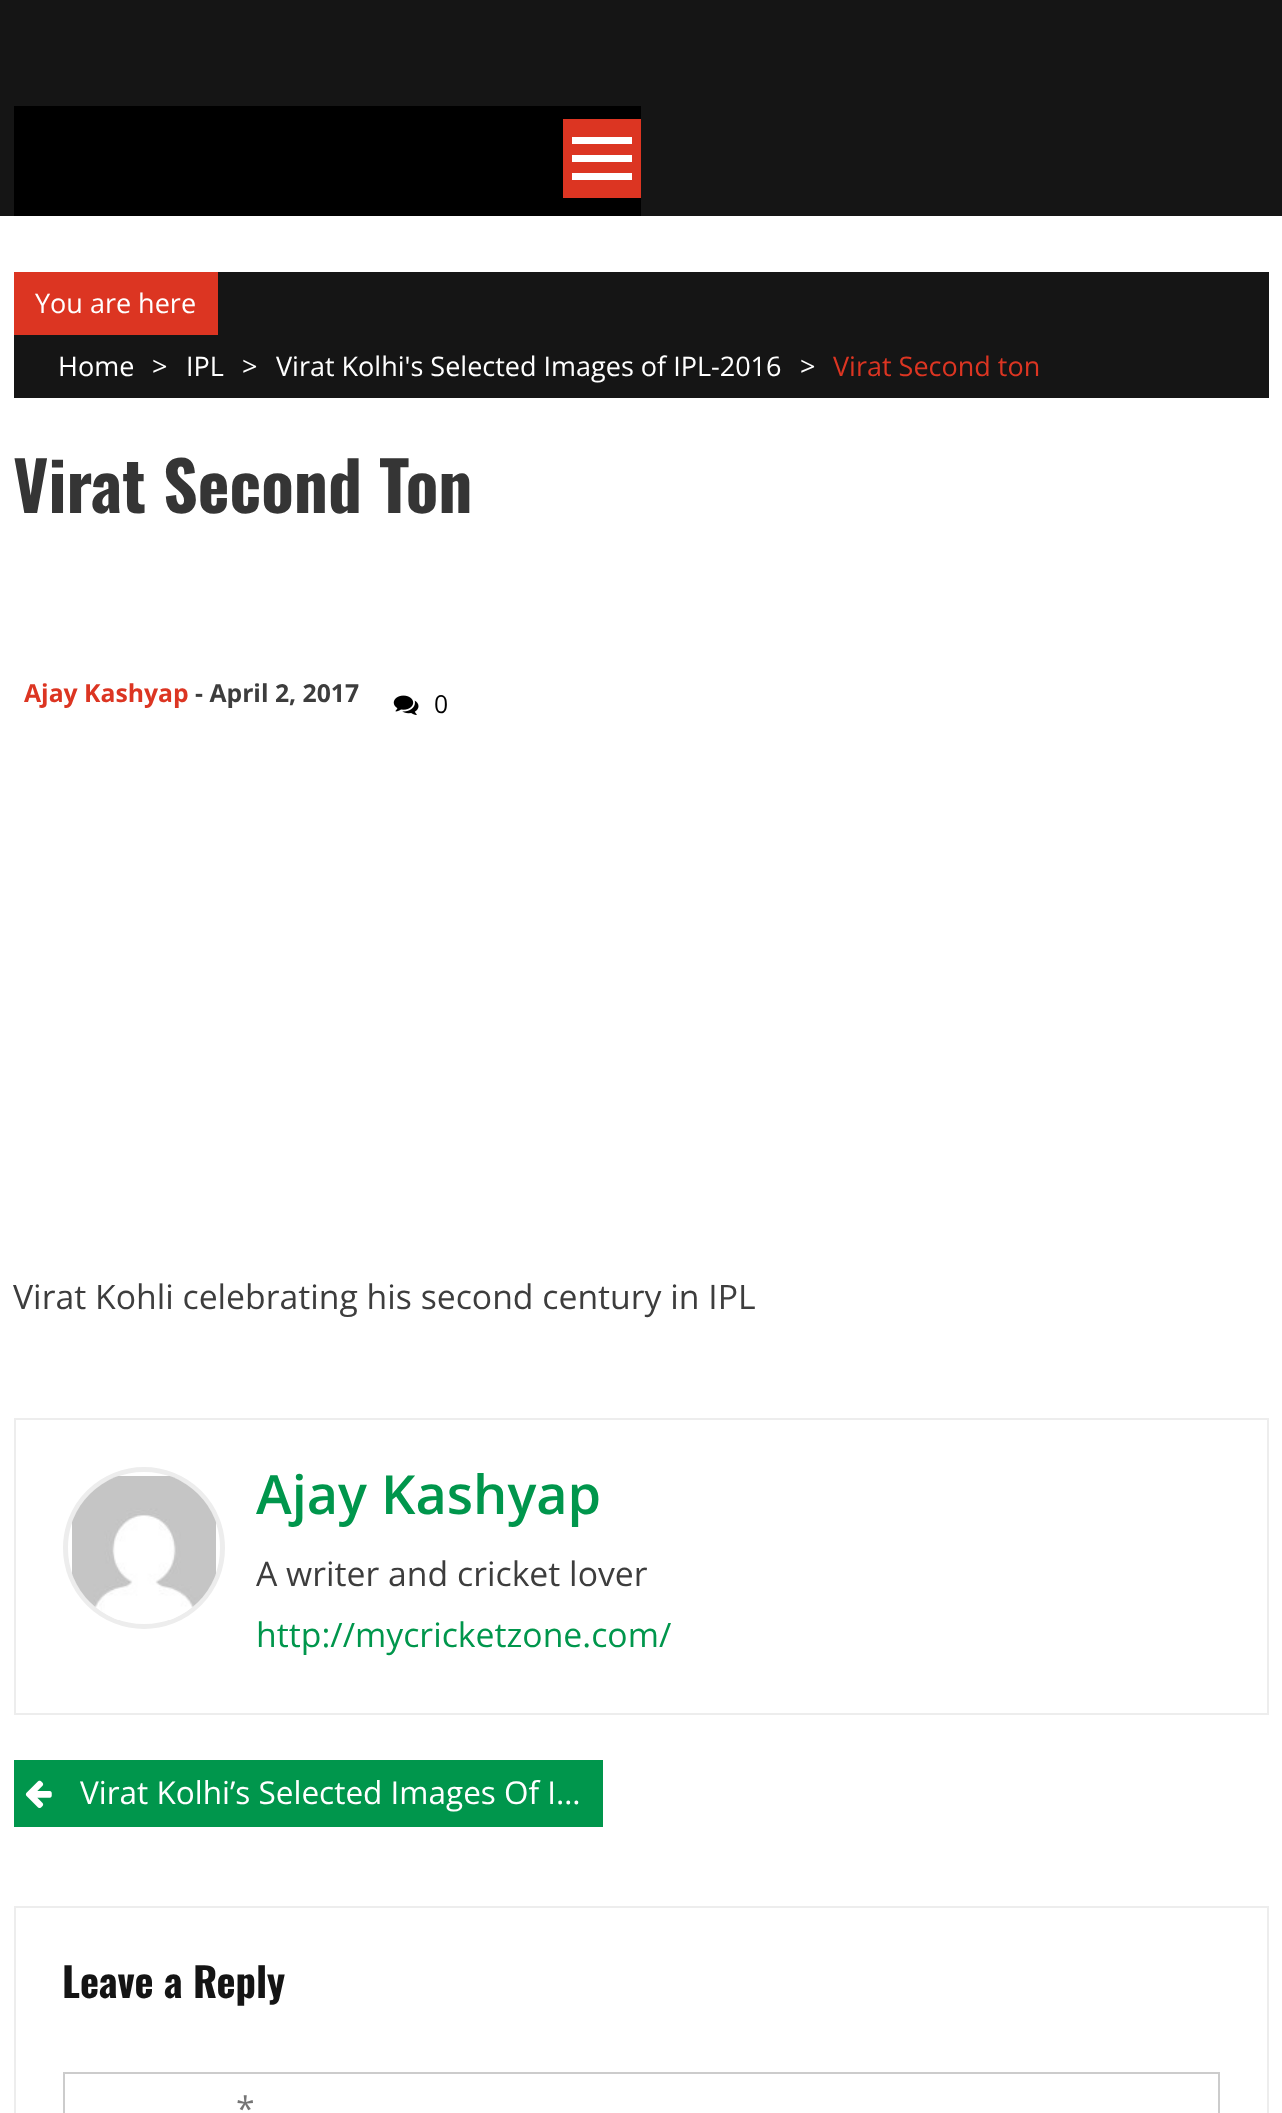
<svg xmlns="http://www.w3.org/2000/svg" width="1282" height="2113">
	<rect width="100%" height="100%" fill="#FFFFFF" />
	<rect x="0" y="0" width="1282" height="216" fill="#151515" />
	<rect x="14" y="106" width="627" height="110" fill="#000000" />
	<rect x="563" y="119" width="78" height="79" fill="#DC3522" />
	<rect x="572" y="137" width="60" height="7" fill="#FFFFFF" />
	<rect x="572" y="155" width="60" height="7" fill="#FFFFFF" />
	<rect x="572" y="173" width="60" height="7" fill="#FFFFFF" />
	<rect x="14" y="272" width="1255" height="126" fill="#151515" />
	<rect x="14" y="272" width="204" height="63" fill="#DC3522" />
	<g font-family="Open Sans" font-size="27" fill="#FFFFFF">
		<text x="35" y="313">You are here</text>
		<text x="58" y="376">Home</text>
		<text x="152" y="376">&gt;</text>
		<text x="186" y="376">IPL</text>
		<text x="242" y="376">&gt;</text>
		<text x="276" y="376">Virat Kolhi's Selected Images of IPL-2016</text>
		<text x="800" y="376">&gt;</text>
	</g>
	<text x="833" y="376" font-family="Open Sans" font-size="27" fill="#DC3522">Virat Second ton</text>
	<text x="13" y="513" font-family="Oswald" font-size="67.5" font-weight="700" fill="#353535">Virat Second Ton</text>
	<text x="24" y="702" font-family="Open Sans" font-size="24.75" font-weight="700" fill="#DC3522">Ajay Kashyap</text>
	<text x="195" y="702" font-family="Open Sans" font-size="24.75" font-weight="700" fill="#3D3D3D">- April 2, 2017</text>
	<image x="393" y="695" width="26" height="20" href="assets/img1.png" />
	<text x="434" y="713" font-family="Open Sans" font-size="24.75" fill="#000000">0</text>
	<text x="13" y="1309" font-family="Open Sans" font-size="33.75" fill="#3D3D3D">Virat Kohli celebrating his second century in IPL</text>
	<rect x="15" y="1419" width="1253" height="295" fill="none" stroke="#EDEDED" stroke-width="2" />
	<circle cx="144" cy="1548" r="78.5" fill="none" stroke="#EDEDED" stroke-width="5" />
	<image x="72" y="1476" width="144" height="144" href="assets/img2.png" />
	<text x="256" y="1514" font-family="Open Sans" font-size="54" font-weight="600" fill="#00964C">Ajay Kashyap</text>
	<text x="256" y="1586" font-family="Open Sans" font-size="33.75" fill="#3D3D3D">A writer and cricket lover</text>
	<text x="256" y="1647" font-family="Open Sans" font-size="33.75" fill="#00964C">http://mycricketzone.com/</text>
	<rect x="14" y="1760" width="589" height="67" fill="#00964C" />
	<image x="25" y="1780" width="27" height="29" href="assets/img3.png" />
	<text x="80" y="1804" font-family="Open Sans" font-size="31.5" fill="#FFFFFF">Virat Kolhi’s Selected Images Of I…</text>
	<rect x="15" y="1907" width="1253" height="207" fill="none" stroke="#EDEDED" stroke-width="2" />
	<text x="62" y="1998" font-family="Oswald" font-size="40.5" font-weight="700" fill="#141414">Leave a Reply</text>
	<rect x="64" y="2073" width="1155" height="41" fill="none" stroke="#CCCCCC" stroke-width="2" />
	<text x="236" y="2121" font-family="Open Sans" font-size="33.75" fill="#757575">*</text>
</svg>
